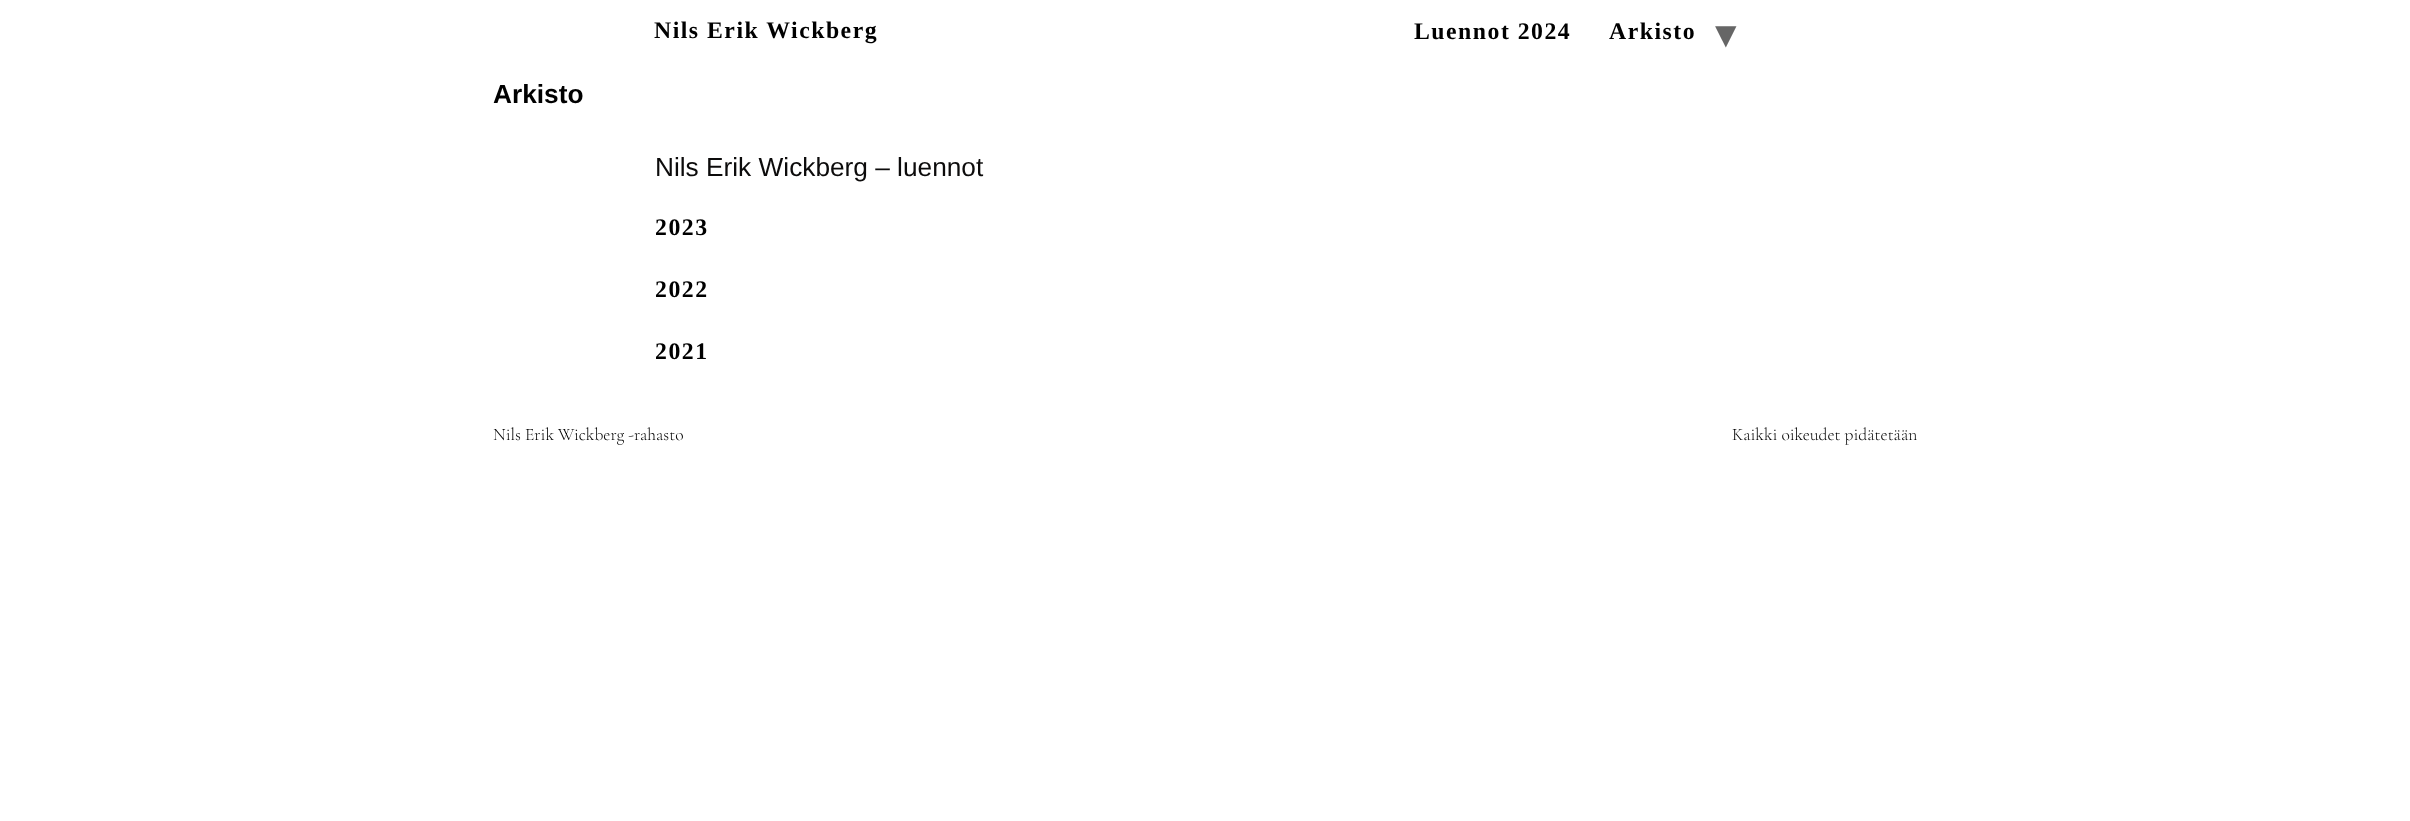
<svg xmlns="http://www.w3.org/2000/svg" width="2410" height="821">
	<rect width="100%" height="100%" fill="#FFFFFF" />
	<g font-family="Liberation Serif" font-size="23.75" font-weight="700" letter-spacing="1.5" fill="#000000">
		<text x="654" y="38">Nils Erik Wickberg</text>
		<text x="1414" y="39">Luennot 2024</text>
		<text x="1609" y="39">Arkisto</text>
	</g>
	<text x="1715" y="48" font-family="DejaVu Sans" font-size="43" fill="#666666">▾</text>
	<text x="493" y="103" font-family="Liberation Sans" font-size="26.25" font-weight="700" fill="#000000">Arkisto</text>
	<text x="655" y="176" font-family="Liberation Sans" font-size="26.25" fill="#0C0B0B">Nils Erik Wickberg – luennot</text>
	<g font-family="Liberation Serif" font-size="23.75" font-weight="700" letter-spacing="1.5" fill="#000000">
		<text x="655" y="235">2023</text>
		<text x="655" y="297">2022</text>
		<text x="655" y="359">2021</text>
	</g>
	<g font-family="Cormorant Garamond" font-size="17.5" font-weight="300" fill="#000000">
		<text x="493" y="440">Nils Erik Wickberg -rahasto</text>
		<text x="1732" y="440">Kaikki oikeudet pidätetään</text>
	</g>
</svg>
